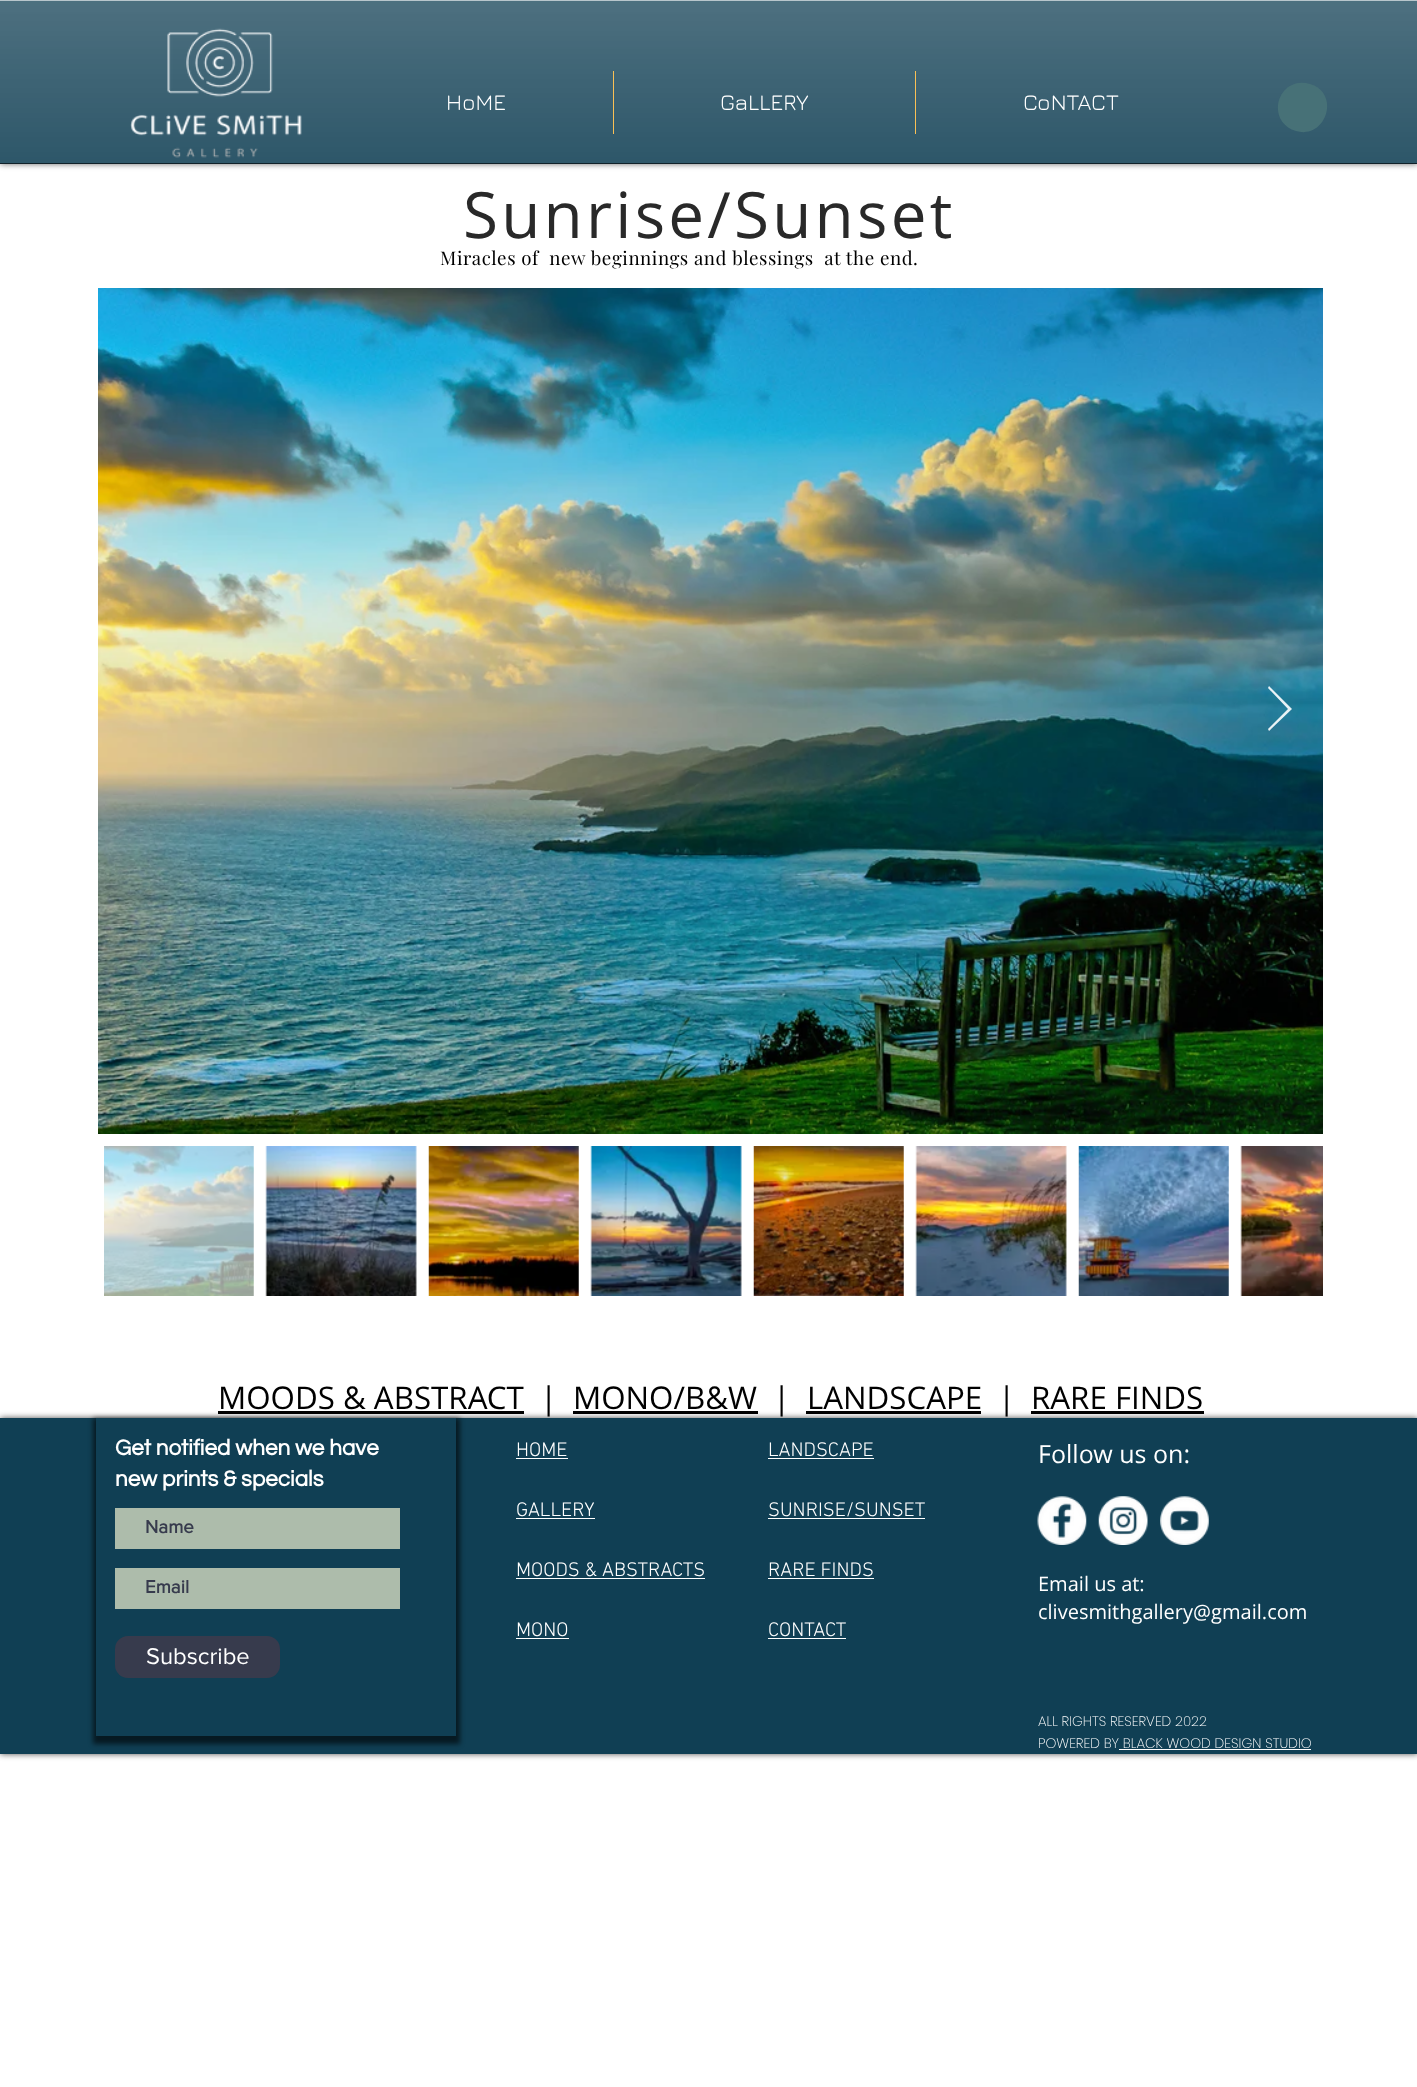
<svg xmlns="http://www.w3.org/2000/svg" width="1417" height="2087">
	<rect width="100%" height="100%" fill="#FFFFFF" />
	<rect x="0" y="0" width="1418" height="164" fill="#000000" fill-opacity="0.6" filter="blur(3px)" />
	<rect x="0" y="1" width="1417" height="162" fill="#103F54" />
	<image x="0" y="1" width="1417" height="162" href="assets/img1.png" />
	<rect x="0" y="163" width="1417" height="1" fill="#0F2028" />
	<rect x="0" y="0" width="1417" height="1" fill="#B8C6CC" />
	<image x="130" y="28" width="172" height="130" href="assets/img2.png" />
	<text x="446" y="110" font-family="Jura" font-size="22.5" fill="#FFFFFF">HoME</text>
	<rect x="613" y="71" width="1" height="63" fill="#FAC055" />
	<text x="720" y="110" font-family="Jura" font-size="22.5" fill="#FFFFFF">GaLLERY</text>
	<rect x="915" y="71" width="1" height="63" fill="#FAC055" />
	<text x="1023" y="110" font-family="Jura" font-size="22.5" fill="#FFFFFF">CoNTACT</text>
	<path d="M1310 84C1341 93 1326 140 1296 131C1264 121 1278 75 1310 84Z" fill="#477177" />
	<text x="463" y="238" font-family="Open Sans" font-size="63.75" letter-spacing="3.25" fill="#292929">Sunrise/Sunset</text>
	<text x="440" y="265" font-family="Playfair Display" font-size="18.75" letter-spacing="0.55" fill="#000000" xml:space="preserve">Miracles of  new beginnings and blessings  at the end.</text>
	<image x="98" y="288" width="1225" height="846" href="assets/img3.png" />
	<path d="M1268 688L1269 686L1292 709L1269 731L1268 729L1288 709Z" fill="#FFFFFF" fill-opacity="0.9" />
	<image x="104" y="1146" width="150" height="150" href="assets/img4.png" />
	<image x="265" y="1146" width="152" height="150" href="assets/img5.png" />
	<image x="428" y="1146" width="151" height="150" href="assets/img6.png" />
	<image x="590" y="1146" width="152" height="150" href="assets/img7.png" />
	<image x="753" y="1146" width="151" height="150" href="assets/img8.png" />
	<image x="915" y="1146" width="152" height="150" href="assets/img9.png" />
	<image x="1078" y="1146" width="151" height="150" href="assets/img10.png" />
	<image x="1240" y="1146" width="83" height="150" href="assets/img11.png" />
	<text x="218" y="1409" font-family="Open Sans" font-size="31.25" fill="#000000">MOODS &amp; ABSTRACT</text>
	<rect x="218" y="1411" width="306" height="3" fill="#000000" />
	<g font-family="Open Sans" font-size="31.25" fill="#000000">
		<text x="540" y="1409">|</text>
		<text x="573" y="1409">MONO/B&amp;W</text>
	</g>
	<rect x="573" y="1411" width="185" height="3" fill="#000000" />
	<g font-family="Open Sans" font-size="31.25" fill="#000000">
		<text x="773" y="1409">|</text>
		<text x="807" y="1409">LANDSCAPE</text>
	</g>
	<rect x="806" y="1411" width="175" height="3" fill="#000000" />
	<g font-family="Open Sans" font-size="31.25" fill="#000000">
		<text x="998" y="1409">|</text>
		<text x="1031" y="1409">RARE FINDS</text>
	</g>
	<rect x="1031" y="1411" width="173" height="3" fill="#000000" />
	<rect x="0" y="1418" width="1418" height="336" fill="#000000" fill-opacity="0.7" filter="blur(3px)" />
	<rect x="0" y="1418" width="1417" height="336" fill="#103F54" />
	<rect x="93" y="1418" width="367" height="326" fill="#000000" fill-opacity="0.6" filter="blur(2.5px)" />
	<rect x="96" y="1418" width="360" height="318" fill="#103F54" />
	<g font-family="Questrial" font-size="22.5" font-weight="700" fill="#FFFFFF">
		<text x="115" y="1455">Get notified when we have</text>
		<text x="115" y="1486">new prints &amp; specials</text>
	</g>
	<rect x="115" y="1508" width="285" height="41" fill="#ADBCAB" />
	<text x="145" y="1533" font-family="'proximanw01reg'" font-size="18.75" font-weight="700" fill="#373B4D">Name</text>
	<rect x="115" y="1568" width="285" height="41" fill="#ADBCAB" />
	<text x="145" y="1593" font-family="'proximanw01reg'" font-size="18.75" font-weight="700" fill="#373B4D">Email</text>
	<rect x="115" y="1636" width="165" height="42" rx="13" fill="#373B4D" />
	<text x="146" y="1664" font-family="'proximanw01reg'" font-size="23.75" fill="#FFFFFF">Subscribe</text>
	<text x="516" y="1456" font-family="'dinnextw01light'" font-size="20" font-weight="300" fill="#FFFFFF">HOME</text>
	<rect x="516" y="1458" width="52" height="1" fill="#FFFFFF" />
	<text x="516" y="1516" font-family="'dinnextw01light'" font-size="20" font-weight="300" fill="#FFFFFF">GALLERY</text>
	<rect x="516" y="1518" width="79" height="1" fill="#FFFFFF" />
	<text x="516" y="1576" font-family="'dinnextw01light'" font-size="20" font-weight="300" fill="#FFFFFF">MOODS &amp; ABSTRACTS</text>
	<rect x="516" y="1578" width="189" height="1" fill="#FFFFFF" />
	<text x="516" y="1636" font-family="'dinnextw01light'" font-size="20" font-weight="300" fill="#FFFFFF">MONO</text>
	<rect x="516" y="1638" width="53" height="1" fill="#FFFFFF" />
	<text x="768" y="1456" font-family="'dinnextw01light'" font-size="20" font-weight="300" fill="#FFFFFF">LANDSCAPE</text>
	<rect x="768" y="1458" width="106" height="1" fill="#FFFFFF" />
	<text x="768" y="1516" font-family="'dinnextw01light'" font-size="20" font-weight="300" fill="#FFFFFF">SUNRISE/SUNSET</text>
	<rect x="768" y="1518" width="157" height="1" fill="#FFFFFF" />
	<text x="768" y="1576" font-family="'dinnextw01light'" font-size="20" font-weight="300" fill="#FFFFFF">RARE FINDS</text>
	<rect x="768" y="1578" width="106" height="1" fill="#FFFFFF" />
	<text x="768" y="1636" font-family="'dinnextw01light'" font-size="20" font-weight="300" fill="#FFFFFF">CONTACT</text>
	<rect x="768" y="1638" width="78" height="1" fill="#FFFFFF" />
	<text x="1038" y="1463" font-family="Open Sans" font-size="25" fill="#FFFFFF">Follow us on:</text>
	<image x="1037" y="1496" width="50" height="49" href="assets/img12.png" />
	<image x="1098" y="1496" width="50" height="49" href="assets/img13.png" />
	<image x="1160" y="1496" width="49" height="49" href="assets/img14.png" />
	<g font-family="Open Sans" font-size="20" fill="#FFFFFF">
		<text x="1038" y="1591">Email us at:</text>
		<text x="1038" y="1619">clivesmithgallery@gmail.com</text>
	</g>
	<g font-family="Poppins" font-size="13.75" font-weight="200" fill="#FFFFFF">
		<text x="1038" y="1726">ALL RIGHTS RESERVED 2022</text>
		<text x="1038" y="1748">POWERED BY BLACK WOOD DESIGN STUDIO</text>
	</g>
	<rect x="1119" y="1749" width="192" height="1" fill="#FFFFFF" />
</svg>
